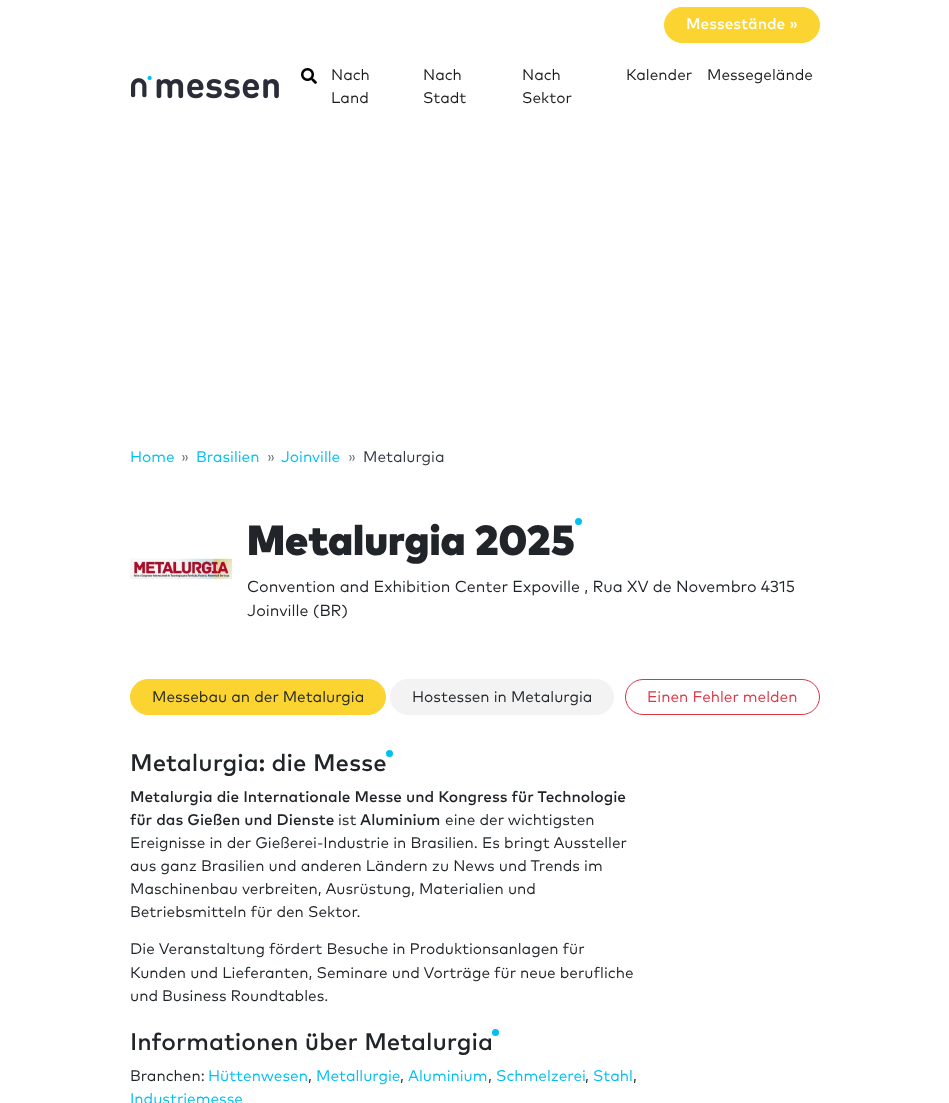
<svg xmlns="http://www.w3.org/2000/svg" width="949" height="1103">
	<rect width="100%" height="100%" fill="#FFFFFF" />
	<rect x="664.5" y="7.5" width="155" height="35" rx="17.5" fill="#FBD431" stroke="#FBD431" />
	<text x="686" y="29" font-family="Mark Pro" font-size="15.4" font-weight="500" fill="#FFFFFF">Messestände »</text>
	<image x="131" y="75" width="148" height="24" href="assets/img1.png" />
	<image x="301" y="68" width="16" height="16" href="assets/img2.png" />
	<g font-family="Mark Pro" font-size="15.4" fill="#1A1A1A">
		<text x="331" y="80">Nach</text>
		<text x="331" y="103">Land</text>
		<text x="423" y="80">Nach</text>
		<text x="423" y="103">Stadt</text>
		<text x="522" y="80">Nach</text>
		<text x="522" y="103">Sektor</text>
		<text x="626" y="80">Kalender</text>
		<text x="707" y="80">Messegelände</text>
	</g>
	<text x="130" y="462" font-family="Mark Pro" font-size="15.4" fill="#00BFF2">Home</text>
	<text x="181" y="462" font-family="Mark Pro" font-size="15.4" fill="#6C757D">»</text>
	<text x="196" y="462" font-family="Mark Pro" font-size="15.4" fill="#00BFF2">Brasilien</text>
	<text x="267" y="462" font-family="Mark Pro" font-size="15.4" fill="#6C757D">»</text>
	<text x="281" y="462" font-family="Mark Pro" font-size="15.4" fill="#00BFF2">Joinville</text>
	<text x="348" y="462" font-family="Mark Pro" font-size="15.4" fill="#6C757D">»</text>
	<text x="363" y="462" font-family="Mark Pro" font-size="15.4" fill="#333642">Metalurgia</text>
	<image x="130" y="557" width="102" height="23" href="assets/img3.png" />
	<circle cx="578.5" cy="521.5" r="3.5" fill="#00BFF2" />
	<text x="247" y="555" font-family="Mark Pro" font-size="42" font-weight="900" fill="#212529">Metalurgia 2025</text>
	<g font-family="Mark Pro" font-size="16" fill="#212529">
		<text x="247" y="592">Convention and Exhibition Center Expoville , Rua XV de Novembro 4315</text>
		<text x="247" y="616">Joinville (BR)</text>
	</g>
	<rect x="130.5" y="679.5" width="255" height="35" rx="17.5" fill="#FBD431" stroke="#FBD431" />
	<text x="152" y="702" font-family="Mark Pro" font-size="15.4" fill="#212529">Messebau an der Metalurgia</text>
	<rect x="390.5" y="679.5" width="223" height="35" rx="17.5" fill="#F3F3F4" stroke="#F3F3F4" />
	<text x="412" y="702" font-family="Mark Pro" font-size="15.4" fill="#212529">Hostessen in Metalurgia</text>
	<rect x="625.5" y="679.5" width="194" height="35" rx="17.5" fill="none" stroke="#DC3545" />
	<text x="647" y="702" font-family="Mark Pro" font-size="15.4" fill="#DC3545">Einen Fehler melden</text>
	<text x="130" y="771" font-family="Mark Pro" font-size="24" font-weight="500" fill="#212529">Metalurgia: die Messe</text>
	<circle cx="389.5" cy="753.5" r="3.5" fill="#00BFF2" />
	<g font-family="Mark Pro" font-size="15.4" font-weight="500" fill="#212529">
		<text x="130" y="802">Metalurgia die Internationale Messe und Kongress für Technologie</text>
		<text x="130" y="825">für das Gießen und Dienste</text>
	</g>
	<text x="338" y="825" font-family="Mark Pro" font-size="15.4" fill="#212529">ist</text>
	<text x="360" y="825" font-family="Mark Pro" font-size="15.4" font-weight="500" fill="#212529">Aluminium</text>
	<g font-family="Mark Pro" font-size="15.4" fill="#212529">
		<text x="445" y="825">eine der wichtigsten</text>
		<text x="130" y="848">Ereignisse in der Gießerei-Industrie in Brasilien. Es bringt Aussteller</text>
		<text x="130" y="871">aus ganz Brasilien und anderen Ländern zu News und Trends im</text>
		<text x="130" y="894">Maschinenbau verbreiten, Ausrüstung, Materialien und</text>
		<text x="130" y="917">Betriebsmitteln für den Sektor.</text>
		<text x="130" y="954">Die Veranstaltung fördert Besuche in Produktionsanlagen für</text>
		<text x="130" y="978">Kunden und Lieferanten, Seminare und Vorträge für neue berufliche</text>
		<text x="130" y="1001">und Business Roundtables.</text>
	</g>
	<text x="130" y="1050" font-family="Mark Pro" font-size="24" font-weight="500" fill="#212529">Informationen über Metalurgia</text>
	<circle cx="495.5" cy="1032.5" r="3.5" fill="#00BFF2" />
	<text x="130" y="1081" font-family="Mark Pro" font-size="15.4" fill="#212529">Branchen:</text>
	<text x="208" y="1081" font-family="Mark Pro" font-size="15.4" fill="#00BFF2">Hüttenwesen</text>
	<text x="308" y="1081" font-family="Mark Pro" font-size="15.4" fill="#212529">,</text>
	<text x="316" y="1081" font-family="Mark Pro" font-size="15.4" fill="#00BFF2">Metallurgie</text>
	<text x="400" y="1081" font-family="Mark Pro" font-size="15.4" fill="#212529">,</text>
	<text x="408" y="1081" font-family="Mark Pro" font-size="15.4" fill="#00BFF2">Aluminium</text>
	<text x="488" y="1081" font-family="Mark Pro" font-size="15.4" fill="#212529">,</text>
	<text x="496" y="1081" font-family="Mark Pro" font-size="15.4" fill="#00BFF2">Schmelzerei</text>
	<text x="585" y="1081" font-family="Mark Pro" font-size="15.4" fill="#212529">,</text>
	<text x="593" y="1081" font-family="Mark Pro" font-size="15.4" fill="#00BFF2">Stahl</text>
	<text x="633" y="1081" font-family="Mark Pro" font-size="15.4" fill="#212529">,</text>
	<text x="130" y="1104" font-family="Mark Pro" font-size="15.4" fill="#00BFF2">Industriemesse</text>
</svg>
